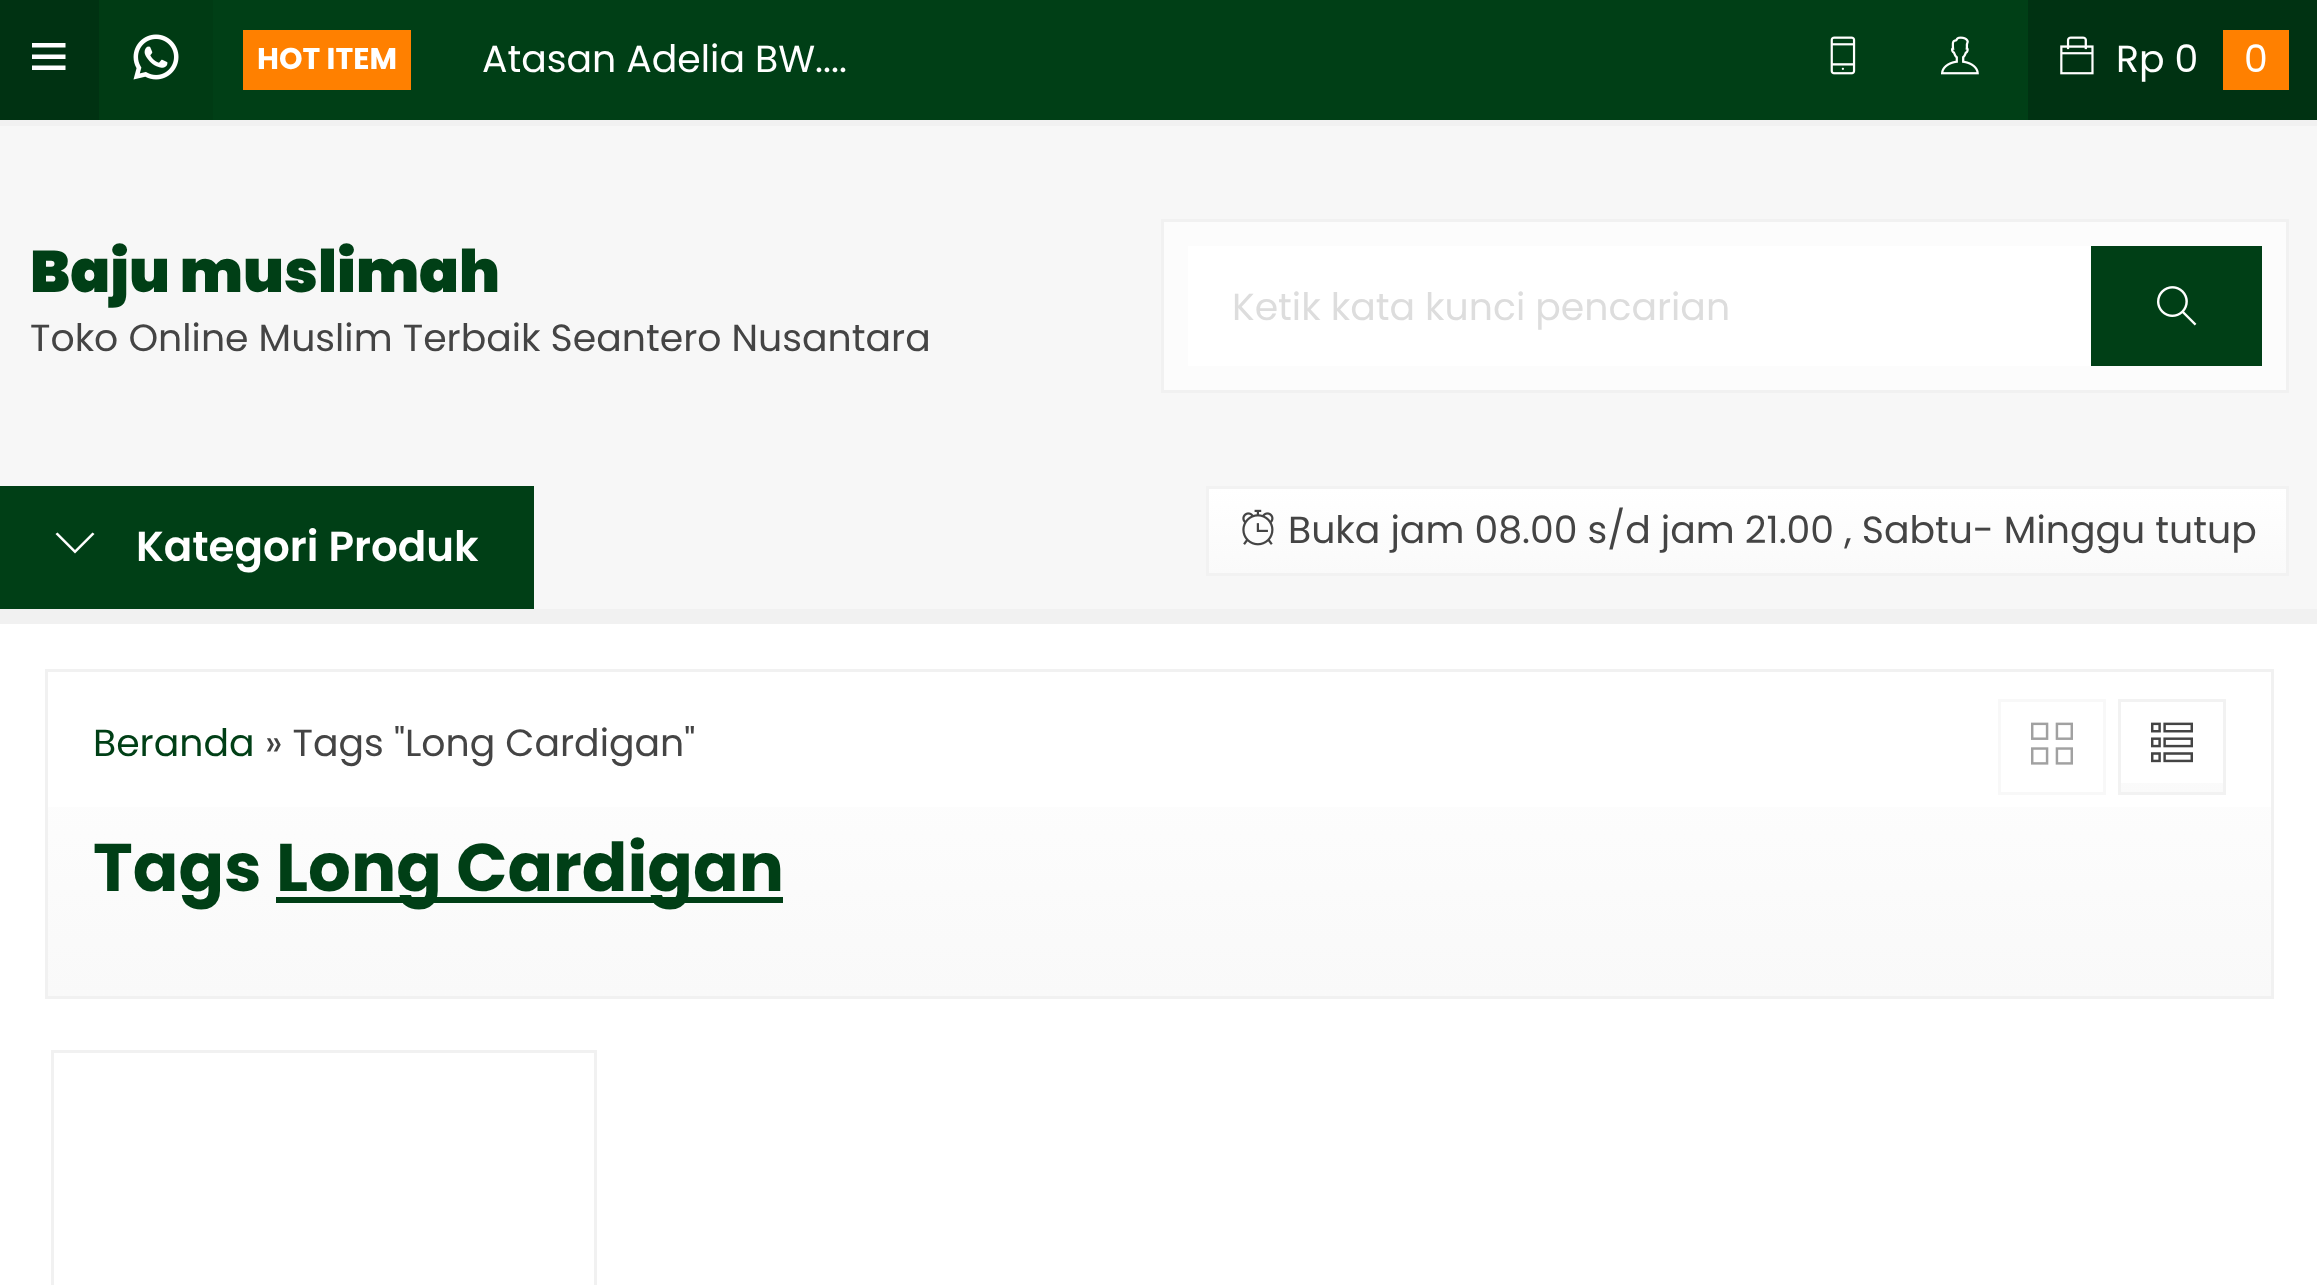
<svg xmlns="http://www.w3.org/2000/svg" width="2317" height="1285">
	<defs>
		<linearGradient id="g1" gradientUnits="userSpaceOnUse" x1="1748" y1="573" x2="1748" y2="489"><stop offset="0" stop-color="#FAFAFA" /><stop offset="1" stop-color="#FFFFFF" /></linearGradient>
		<linearGradient id="g2" gradientUnits="userSpaceOnUse" x1="1160" y1="672" x2="1160" y2="996"><stop offset="0" stop-color="#FFFFFF" /><stop offset="1" stop-color="#F9F9F9" /></linearGradient>
		<linearGradient id="g3" gradientUnits="userSpaceOnUse" x1="2172" y1="792" x2="2172" y2="702"><stop offset="0" stop-color="#FAFAFA" /><stop offset="1" stop-color="#FFFFFF" /></linearGradient>
	</defs>
	<rect width="100%" height="100%" fill="#F1F1F1" />
	<rect x="213" y="0" width="1815" height="120" fill="#003F16" />
	<rect x="0" y="0" width="99" height="120" fill="#003212" />
	<path d="M65.5 43V47.5H32V43ZM32 59H65.5V54.5H32ZM32 70H65.5V65.5H32Z" fill="#FFFFFF" />
	<rect x="99" y="0" width="114" height="120" fill="#003B14" />
	<image x="133" y="34" width="46" height="46" href="assets/img1.png" />
	<rect x="243" y="30" width="168" height="60" fill="#FF8000" />
	<text x="257" y="69" font-family="Poppins" font-size="30" font-weight="700" fill="#FFFFFF">HOT ITEM</text>
	<text x="482" y="72" font-family="Poppins" font-size="37.8" fill="#FFFFFF">Atasan Adelia BW....</text>
	<image x="1830" y="36" width="26" height="39" href="assets/img2.png" />
	<image x="1941" y="36" width="38" height="39" href="assets/img3.png" />
	<rect x="2028" y="0" width="289" height="120" fill="#003212" />
	<image x="2060" y="36" width="34" height="39" href="assets/img4.png" />
	<text x="2116" y="72" font-family="Poppins" font-size="37.8" fill="#FFFFFF">Rp 0</text>
	<rect x="2223" y="30" width="66" height="60" fill="#FF8000" />
	<text x="2244" y="72" font-family="Poppins" font-size="37.8" fill="#FFFFFF">0</text>
	<rect x="0" y="126" width="2317" height="483" fill="#F7F7F7" />
	<text x="30" y="292" font-family="Poppins" font-size="58.75" font-weight="900" fill="#003F16">Baju muslimah</text>
	<text x="30" y="351" font-family="Poppins" font-size="37.8" fill="#444444">Toko Online Muslim Terbaik Seantero Nusantara</text>
	<rect x="1162.5" y="220.5" width="1125" height="171" fill="#FCFCFC" stroke="#F1F1F1" stroke-width="3" />
	<rect x="1188" y="246" width="903" height="120" fill="#FFFFFF" />
	<text x="1232" y="320" font-family="Poppins" font-size="37.8" fill="#DDDDDD">Ketik kata kunci pencarian</text>
	<rect x="2091" y="246" width="171" height="120" fill="#003F16" />
	<image x="2157" y="286" width="40" height="40" href="assets/img5.png" />
	<rect x="0" y="486" width="534" height="123" fill="#003F16" />
	<path d="M94.5 534L75 553.5L55.5 534L57.5 532.5L75 550L92.5 532.5Z" fill="#FFFFFF" />
	<text x="136" y="561" font-family="Poppins" font-size="42" font-weight="600" fill="#FFFFFF">Kategori Produk</text>
	<rect x="1209" y="489" width="1077" height="84" fill="url(#g1)" />
	<rect x="1207.5" y="487.5" width="1080" height="87" fill="none" stroke="#F2F2F2" stroke-width="3" />
	<image x="1242" y="509" width="32" height="37" href="assets/img6.png" />
	<text x="1288" y="543" font-family="Poppins" font-size="37.8" fill="#444444">Buka jam 08.00 s/d jam 21.00 , Sabtu- Minggu tutup</text>
	<rect x="0" y="624" width="2317" height="661" fill="#FFFFFF" />
	<rect x="48" y="807" width="2223" height="189" fill="url(#g2)" />
	<rect x="46.5" y="670.5" width="2226" height="327" fill="none" stroke="#F1F1F1" stroke-width="3" />
	<text x="93" y="756" font-family="Poppins" font-size="37.8" fill="#003F16">Beranda</text>
	<text x="265" y="756" font-family="Poppins" font-size="37.8" fill="#444444">» Tags "Long Cardigan"</text>
	<rect x="1999.5" y="700.5" width="105" height="93" fill="none" stroke="#F8F8F8" stroke-width="3" />
	<rect x="2121" y="783" width="102" height="9" fill="url(#g3)" />
	<rect x="2119.5" y="700.5" width="105" height="93" fill="none" stroke="#F2F2F2" stroke-width="3" />
	<image x="2031" y="722" width="42" height="43" href="assets/img7.png" />
	<image x="2151" y="722" width="42" height="41" href="assets/img8.png" />
	<text x="93" y="891" font-family="Poppins" font-size="67.25" font-weight="700" fill="#003F16">Tags</text>
	<rect x="276" y="897" width="507" height="6" fill="#003F16" />
	<text x="276" y="891" font-family="Poppins" font-size="67.25" font-weight="700" fill="#003F16">Long Cardigan</text>
	<rect x="52.5" y="1051.5" width="543" height="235" fill="none" stroke="#F1F1F1" stroke-width="3" />
</svg>
